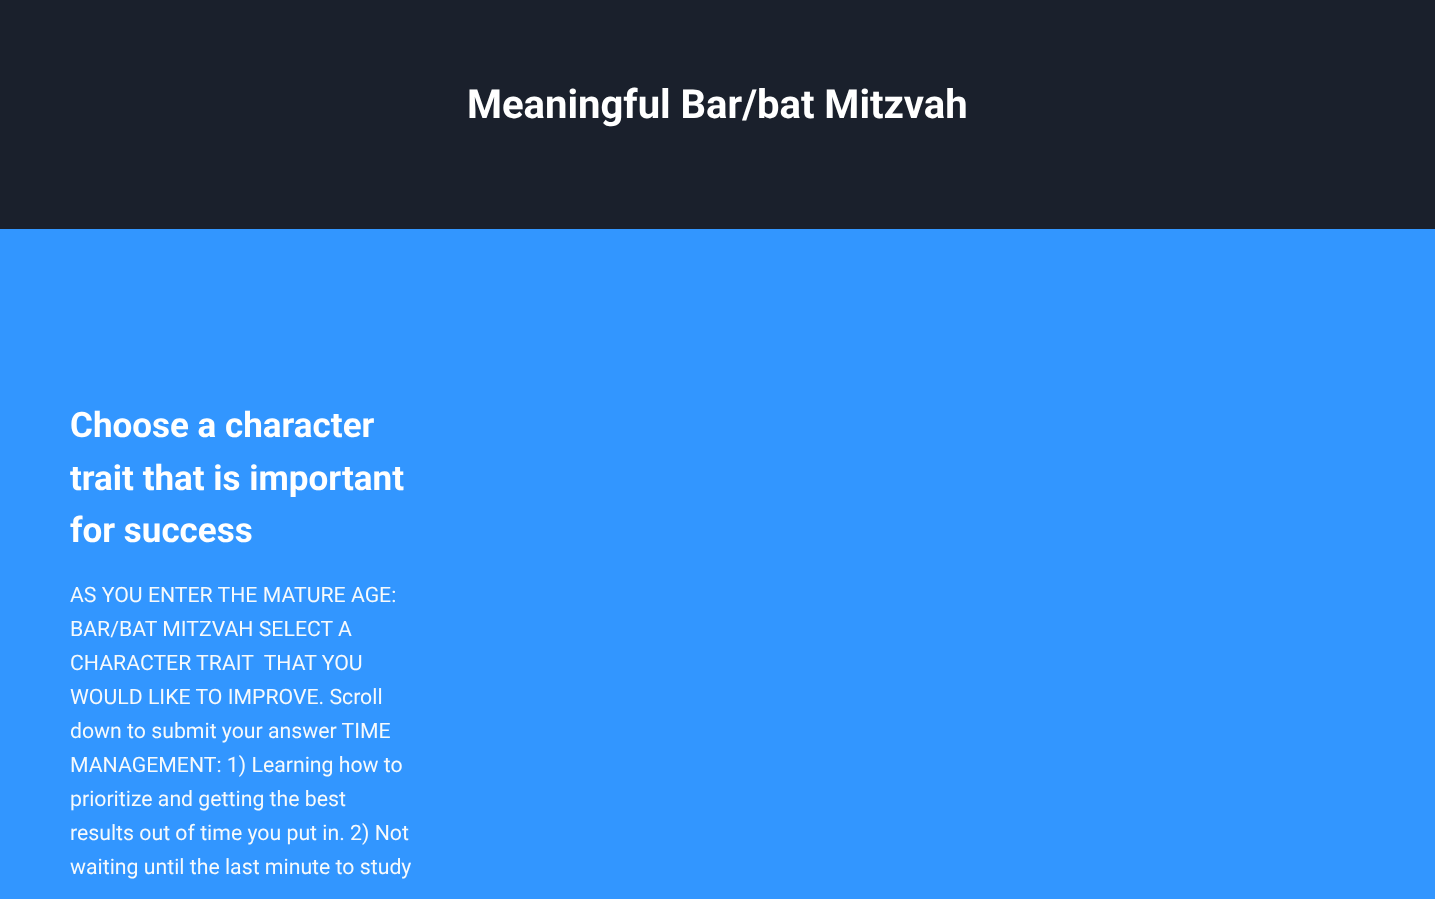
<svg xmlns="http://www.w3.org/2000/svg" width="1435" height="899">
	<rect width="100%" height="100%" fill="#3296FF" />
	<rect x="0" y="0" width="1435" height="229" fill="#1A202C" />
	<text x="467" y="118" font-family="Roboto" font-size="40" font-weight="700" fill="#FFFFFF">Meaningful Bar/bat Mitzvah</text>
	<g font-family="Roboto" font-size="35" font-weight="700" fill="#FFFFFF">
		<text x="70" y="437">Choose a character</text>
		<text x="70" y="490">trait that is important</text>
		<text x="70" y="542">for success</text>
	</g>
	<g font-family="Roboto" font-size="21.25" fill="#F7FAFC">
		<text x="70" y="602">AS YOU ENTER THE MATURE AGE:</text>
		<text x="70" y="636">BAR/BAT MITZVAH SELECT A</text>
		<text x="70" y="670" xml:space="preserve">CHARACTER TRAIT  THAT YOU</text>
		<text x="70" y="704">WOULD LIKE TO IMPROVE. Scroll</text>
		<text x="70" y="738">down to submit your answer TIME</text>
		<text x="70" y="772">MANAGEMENT: 1) Learning how to</text>
		<text x="70" y="806">prioritize and getting the best</text>
		<text x="70" y="840">results out of time you put in. 2) Not</text>
		<text x="70" y="874">waiting until the last minute to study</text>
	</g>
</svg>
